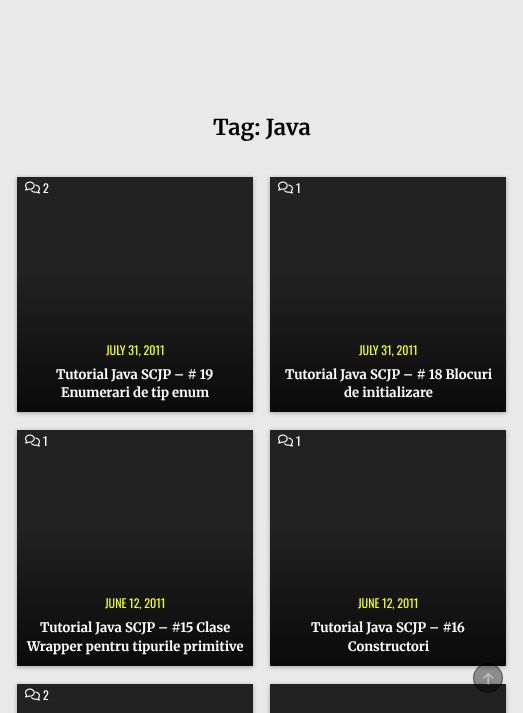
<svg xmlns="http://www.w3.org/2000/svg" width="523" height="713">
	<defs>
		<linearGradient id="g1" gradientUnits="userSpaceOnUse" x1="135" y1="412" x2="135" y2="177"><stop offset="0" stop-color="#0A0A0A" /><stop offset="0.6" stop-color="#222222" /><stop offset="1" stop-color="#222222" /></linearGradient>
		<linearGradient id="g2" gradientUnits="userSpaceOnUse" x1="388" y1="412" x2="388" y2="177"><stop offset="0" stop-color="#0A0A0A" /><stop offset="0.6" stop-color="#222222" /><stop offset="1" stop-color="#222222" /></linearGradient>
		<linearGradient id="g3" gradientUnits="userSpaceOnUse" x1="135" y1="666" x2="135" y2="430"><stop offset="0" stop-color="#0A0A0A" /><stop offset="0.6" stop-color="#222222" /><stop offset="1" stop-color="#222222" /></linearGradient>
		<linearGradient id="g4" gradientUnits="userSpaceOnUse" x1="388" y1="666" x2="388" y2="430"><stop offset="0" stop-color="#0A0A0A" /><stop offset="0.6" stop-color="#222222" /><stop offset="1" stop-color="#222222" /></linearGradient>
	</defs>
	<rect width="100%" height="100%" fill="#E9E9E9" />
	<text x="213" y="135" font-family="Merriweather" font-size="22" font-weight="700" fill="#000000">Tag: Java</text>
	<rect x="17" y="178" width="236" height="235" fill="#000000" fill-opacity="0.3" filter="blur(2px)" />
	<rect x="17" y="177" width="236" height="235" fill="url(#g1)" />
	<image x="25" y="181" width="15" height="13" href="assets/img1.png" />
	<text x="43" y="193" font-family="Oswald" font-size="12" fill="#FFFFFF">2</text>
	<text x="106" y="355" font-family="Oswald" font-size="12" fill="#F0FF0E">JULY 31, 2011</text>
	<g font-family="Merriweather" font-size="13" font-weight="700" fill="#FFFFFF">
		<text x="56" y="379">Tutorial Java SCJP – # 19</text>
		<text x="61" y="397">Enumerari de tip enum</text>
	</g>
	<rect x="270" y="178" width="236" height="235" fill="#000000" fill-opacity="0.3" filter="blur(2px)" />
	<rect x="270" y="177" width="236" height="235" fill="url(#g2)" />
	<image x="278" y="181" width="15" height="13" href="assets/img1.png" />
	<text x="296" y="193" font-family="Oswald" font-size="12" fill="#FFFFFF">1</text>
	<text x="359" y="355" font-family="Oswald" font-size="12" fill="#F0FF0E">JULY 31, 2011</text>
	<g font-family="Merriweather" font-size="13" font-weight="700" fill="#FFFFFF">
		<text x="285" y="379">Tutorial Java SCJP – # 18 Blocuri</text>
		<text x="344" y="397">de initializare</text>
	</g>
	<rect x="17" y="431" width="236" height="236" fill="#000000" fill-opacity="0.3" filter="blur(2px)" />
	<rect x="17" y="430" width="236" height="236" fill="url(#g3)" />
	<image x="25" y="434" width="15" height="13" href="assets/img1.png" />
	<text x="43" y="446" font-family="Oswald" font-size="12" fill="#FFFFFF">1</text>
	<text x="105" y="608" font-family="Oswald" font-size="12" fill="#F0FF0E">JUNE 12, 2011</text>
	<g font-family="Merriweather" font-size="13" font-weight="700" fill="#FFFFFF">
		<text x="40" y="632">Tutorial Java SCJP – #15 Clase</text>
		<text x="27" y="651">Wrapper pentru tipurile primitive</text>
	</g>
	<rect x="270" y="431" width="236" height="236" fill="#000000" fill-opacity="0.3" filter="blur(2px)" />
	<rect x="270" y="430" width="236" height="236" fill="url(#g4)" />
	<image x="278" y="434" width="15" height="13" href="assets/img1.png" />
	<text x="296" y="446" font-family="Oswald" font-size="12" fill="#FFFFFF">1</text>
	<text x="358" y="608" font-family="Oswald" font-size="12" fill="#F0FF0E">JUNE 12, 2011</text>
	<g font-family="Merriweather" font-size="13" font-weight="700" fill="#FFFFFF">
		<text x="311" y="632">Tutorial Java SCJP – #16</text>
		<text x="348" y="651">Constructori</text>
	</g>
	<rect x="17" y="685" width="236" height="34" fill="#000000" fill-opacity="0.3" filter="blur(2px)" />
	<rect x="17" y="684" width="236" height="29" fill="#222222" />
	<image x="25" y="688" width="15" height="13" href="assets/img1.png" />
	<text x="43" y="700" font-family="Oswald" font-size="12" fill="#FFFFFF">2</text>
	<rect x="270" y="685" width="236" height="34" fill="#000000" fill-opacity="0.3" filter="blur(2px)" />
	<rect x="270" y="684" width="236" height="29" fill="#222222" />
	<circle cx="488" cy="678" r="15" fill="#000000" fill-opacity="0.4" />
	<circle cx="488" cy="678" r="14.5" fill="none" stroke="#000000" stroke-opacity="0.4" />
	<image x="483" y="672" width="11" height="13" href="assets/img2.png" />
</svg>
